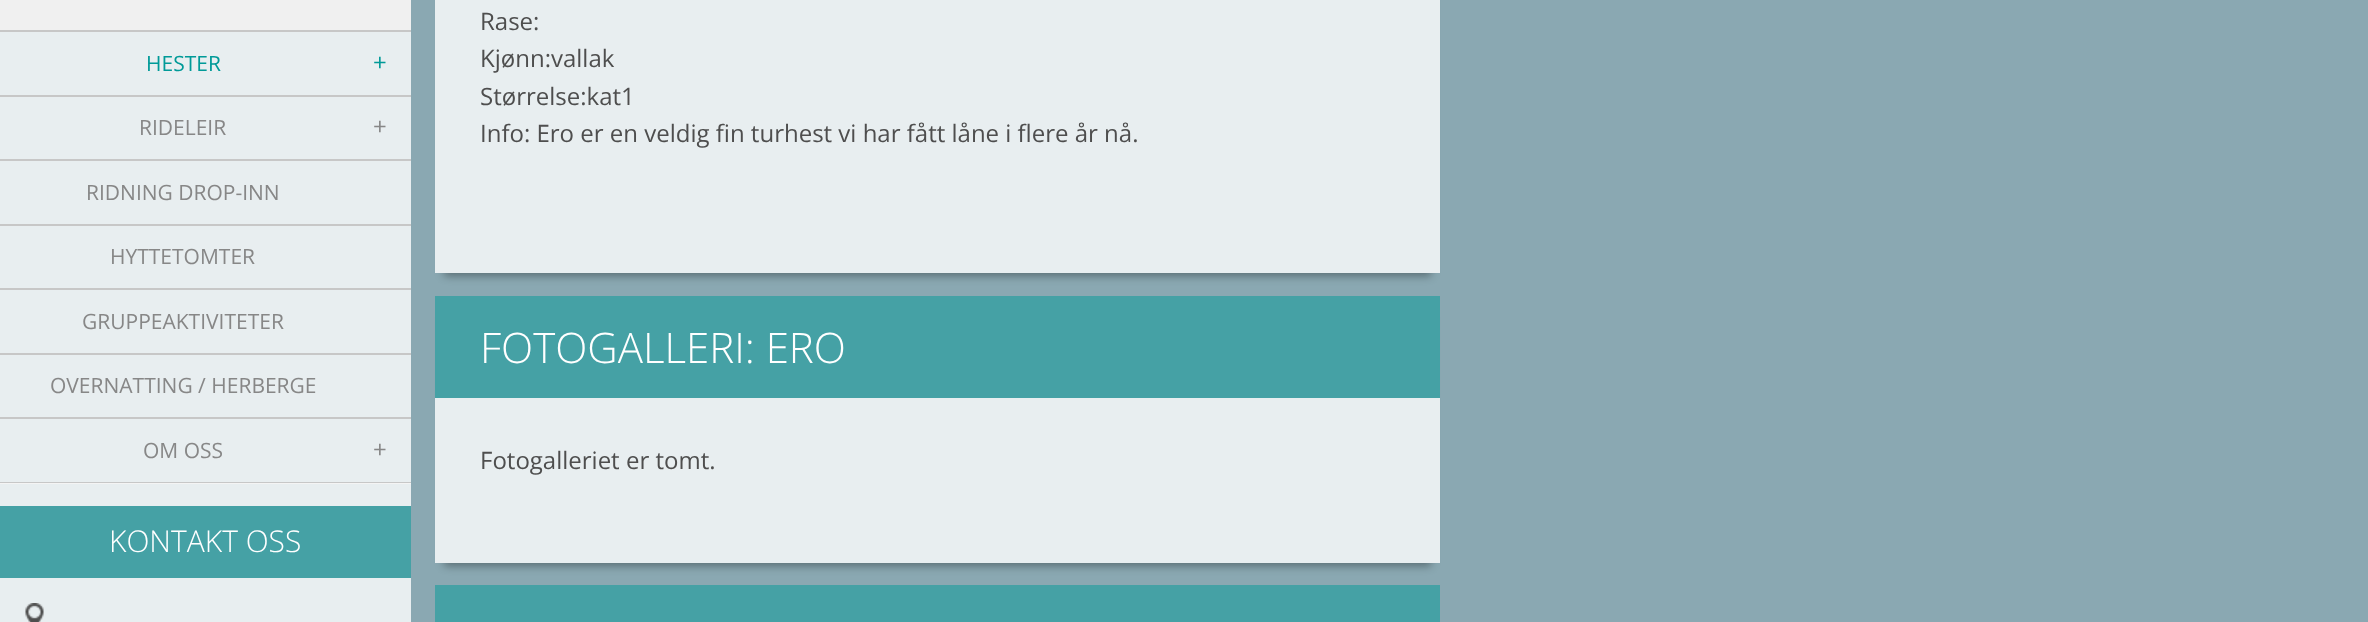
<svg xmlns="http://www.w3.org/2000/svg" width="2368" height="622">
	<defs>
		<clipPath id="clip1"><path d="M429 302H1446V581H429ZM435 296H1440V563H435Z" clip-rule="evenodd" /></clipPath>
	</defs>
	<rect width="100%" height="100%" fill="#8AA8B2" />
	<rect x="0" y="484" width="411" height="22" fill="#E8EEF0" />
	<rect x="0" y="32" width="411" height="450" fill="#E8EEF0" />
	<rect x="0" y="0" width="411" height="30" fill="#F0F0F0" />
	<rect x="0" y="30" width="411" height="2" fill="#C7C7C7" />
	<rect x="0" y="95" width="411" height="2" fill="#C7C7C7" />
	<text x="146" y="71" font-family="Open Sans" font-size="21" fill="#009A98">HESTER</text>
	<text x="373" y="71" font-family="Open Sans" font-size="24" fill="#009A98">+</text>
	<rect x="0" y="159" width="411" height="2" fill="#C7C7C7" />
	<text x="139" y="135" font-family="Open Sans" font-size="21" fill="#878787">RIDELEIR</text>
	<text x="373" y="135" font-family="Open Sans" font-size="24" fill="#878787">+</text>
	<rect x="0" y="224" width="411" height="2" fill="#C7C7C7" />
	<text x="86" y="200" font-family="Open Sans" font-size="21" fill="#878787">RIDNING DROP-INN</text>
	<rect x="0" y="288" width="411" height="2" fill="#C7C7C7" />
	<text x="110" y="264" font-family="Open Sans" font-size="21" fill="#878787">HYTTETOMTER</text>
	<rect x="0" y="353" width="411" height="2" fill="#C7C7C7" />
	<text x="82" y="329" font-family="Open Sans" font-size="21" fill="#878787">GRUPPEAKTIVITETER</text>
	<rect x="0" y="417" width="411" height="2" fill="#C7C7C7" />
	<text x="50" y="393" font-family="Open Sans" font-size="21" fill="#878787">OVERNATTING / HERBERGE</text>
	<rect x="0" y="482" width="411" height="1" fill="#C7C7C7" />
	<rect x="0" y="483" width="411" height="1" fill="#F4F4F4" />
	<text x="143" y="458" font-family="Open Sans" font-size="21" fill="#878787">OM OSS</text>
	<text x="373" y="458" font-family="Open Sans" font-size="24" fill="#878787">+</text>
	<rect x="0" y="506" width="411" height="72" fill="#45A1A5" />
	<text x="109" y="552" font-family="Open Sans" font-size="30" font-weight="300" fill="#FFFFFF">KONTAKT OSS</text>
	<rect x="0" y="578" width="411" height="44" fill="#E8EEF0" />
	<image x="25" y="603" width="19" height="19" href="assets/img1.png" />
	<rect x="444" y="-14" width="987" height="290" fill="#000000" fill-opacity="0.35" filter="blur(4.5px)" />
	<rect x="435" y="0" width="1005" height="273" fill="#E8EEF0" />
	<g font-family="Open Sans" font-size="24" fill="#4E4E4E">
		<text x="480" y="30">Rase:</text>
		<text x="480" y="67">Kjønn:vallak</text>
		<text x="480" y="105">Størrelse:kat1</text>
		<text x="480" y="142">Info: Ero er en veldig fin turhest vi har fått låne i flere år nå.</text>
	</g>
	<g clip-path="url(#clip1)">
		<rect x="444" y="317" width="987" height="249" fill="#000000" fill-opacity="0.35" filter="blur(4.5px)" />
	</g>
	<rect x="435" y="296" width="1005" height="102" fill="#45A1A5" />
	<text x="480" y="363" font-family="Open Sans" font-size="42" font-weight="300" fill="#FFFFFF">FOTOGALLERI: ERO</text>
	<rect x="435" y="398" width="1005" height="120" fill="#E8EEF0" />
	<text x="480" y="469" font-family="Open Sans" font-size="24" fill="#4E4E4E">Fotogalleriet er tomt.</text>
	<rect x="435" y="518" width="1005" height="45" fill="#FFFFFF" fill-opacity="0.8" />
	<rect x="435" y="585" width="1005" height="37" fill="#45A1A5" />
</svg>
